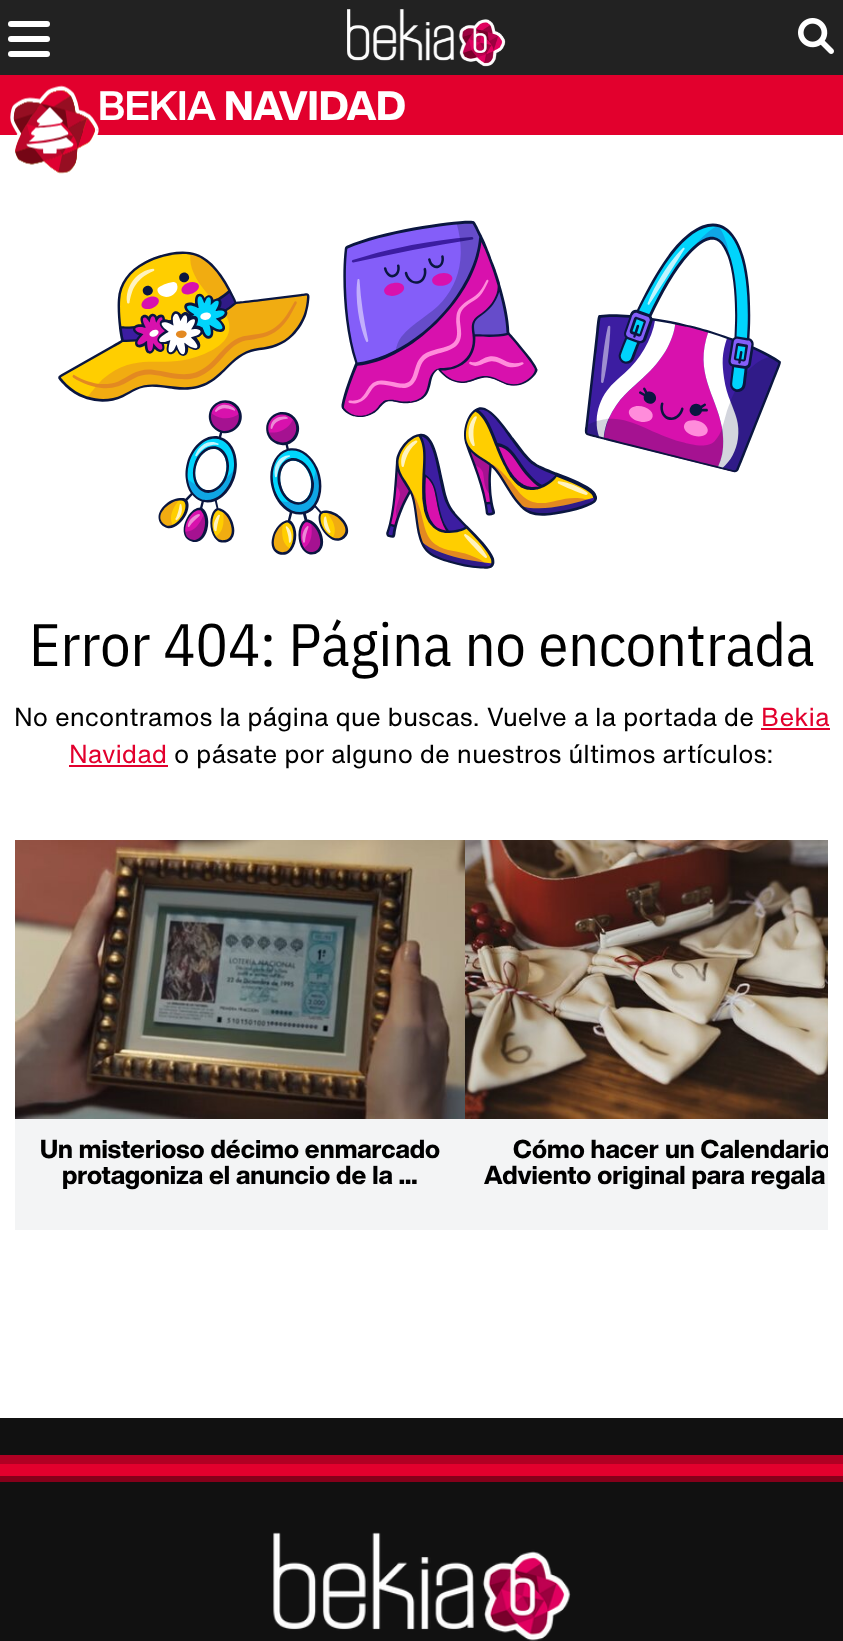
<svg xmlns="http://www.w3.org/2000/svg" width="843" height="1641">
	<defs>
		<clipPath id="clip1"><rect x="15" y="840" width="813" height="428" /></clipPath>
	</defs>
	<rect width="100%" height="100%" fill="#FFFFFF" />
	<rect x="0" y="0" width="843" height="75" fill="#222222" />
	<rect x="8" y="21" width="42" height="6" rx="3" fill="#FFFFFF" />
	<rect x="8" y="36" width="42" height="6" rx="3" fill="#FFFFFF" />
	<rect x="8" y="51" width="42" height="6" rx="3" fill="#FFFFFF" />
	<image x="347" y="9" width="159" height="58" href="assets/img1.png" />
	<image x="798" y="18" width="36" height="36" href="assets/img2.png" />
	<rect x="0" y="75" width="843" height="60" fill="#E2002D" />
	<image x="10" y="85" width="89" height="89" href="assets/img3.png" />
	<text x="98" y="120" font-family="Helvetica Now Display" font-size="40.5" font-weight="700" fill="#FFFFFF">BEKIA</text>
	<text x="224" y="120" font-family="Helvetica Now Display" font-size="40.5" font-weight="800" fill="#FFFFFF">NAVIDAD</text>
	<image x="58" y="220" width="723" height="349" href="assets/img4.png" />
	<text x="29" y="666" font-family="IBM Plex Sans Condensed" font-size="60" fill="#000000">Error 404: Página no encontrada</text>
	<text x="14" y="726" font-family="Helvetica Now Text" font-size="25.5" fill="#000000">No encontramos la página que buscas. Vuelve a la portada de</text>
	<text x="761" y="726" font-family="Helvetica Now Text" font-size="25.5" fill="#E2002D">Bekia</text>
	<rect x="761" y="728" width="69" height="2" fill="#E2002D" />
	<text x="69" y="763" font-family="Helvetica Now Text" font-size="25.5" fill="#E2002D">Navidad</text>
	<rect x="69" y="765" width="99" height="2" fill="#E2002D" />
	<text x="174" y="763" font-family="Helvetica Now Text" font-size="25.5" fill="#000000">o pásate por alguno de nuestros últimos artículos:</text>
	<rect x="15" y="1119" width="813" height="111" fill="#F3F4F5" />
	<image x="15" y="840" width="450" height="279" href="assets/img5.png" />
	<g font-family="Helvetica Now Display" font-size="25.5" font-weight="800" fill="#000000">
		<text x="40" y="1158">Un misterioso décimo enmarcado</text>
		<text x="62" y="1184">protagoniza el anuncio de la ...</text>
	</g>
	<image x="465" y="840" width="363" height="279" href="assets/img6.png" />
	<g clip-path="url(#clip1)">
		<text x="513" y="1158" font-family="Helvetica Now Display" font-size="25.5" font-weight="800" fill="#000000">Cómo hacer un Calendario</text>
	</g>
	<text x="484" y="1184" font-family="Helvetica Now Display" font-size="25.5" font-weight="800" fill="#000000">Adviento original para regala</text>
	<rect x="0" y="1418" width="843" height="223" fill="#111111" />
	<rect x="0" y="1464" width="843" height="12" fill="#E2002D" />
	<rect x="0" y="1455" width="843" height="9" fill="#B00023" />
	<rect x="0" y="1476" width="843" height="6" fill="#85001A" />
	<image x="273" y="1532" width="298" height="109" href="assets/img7.png" />
</svg>
